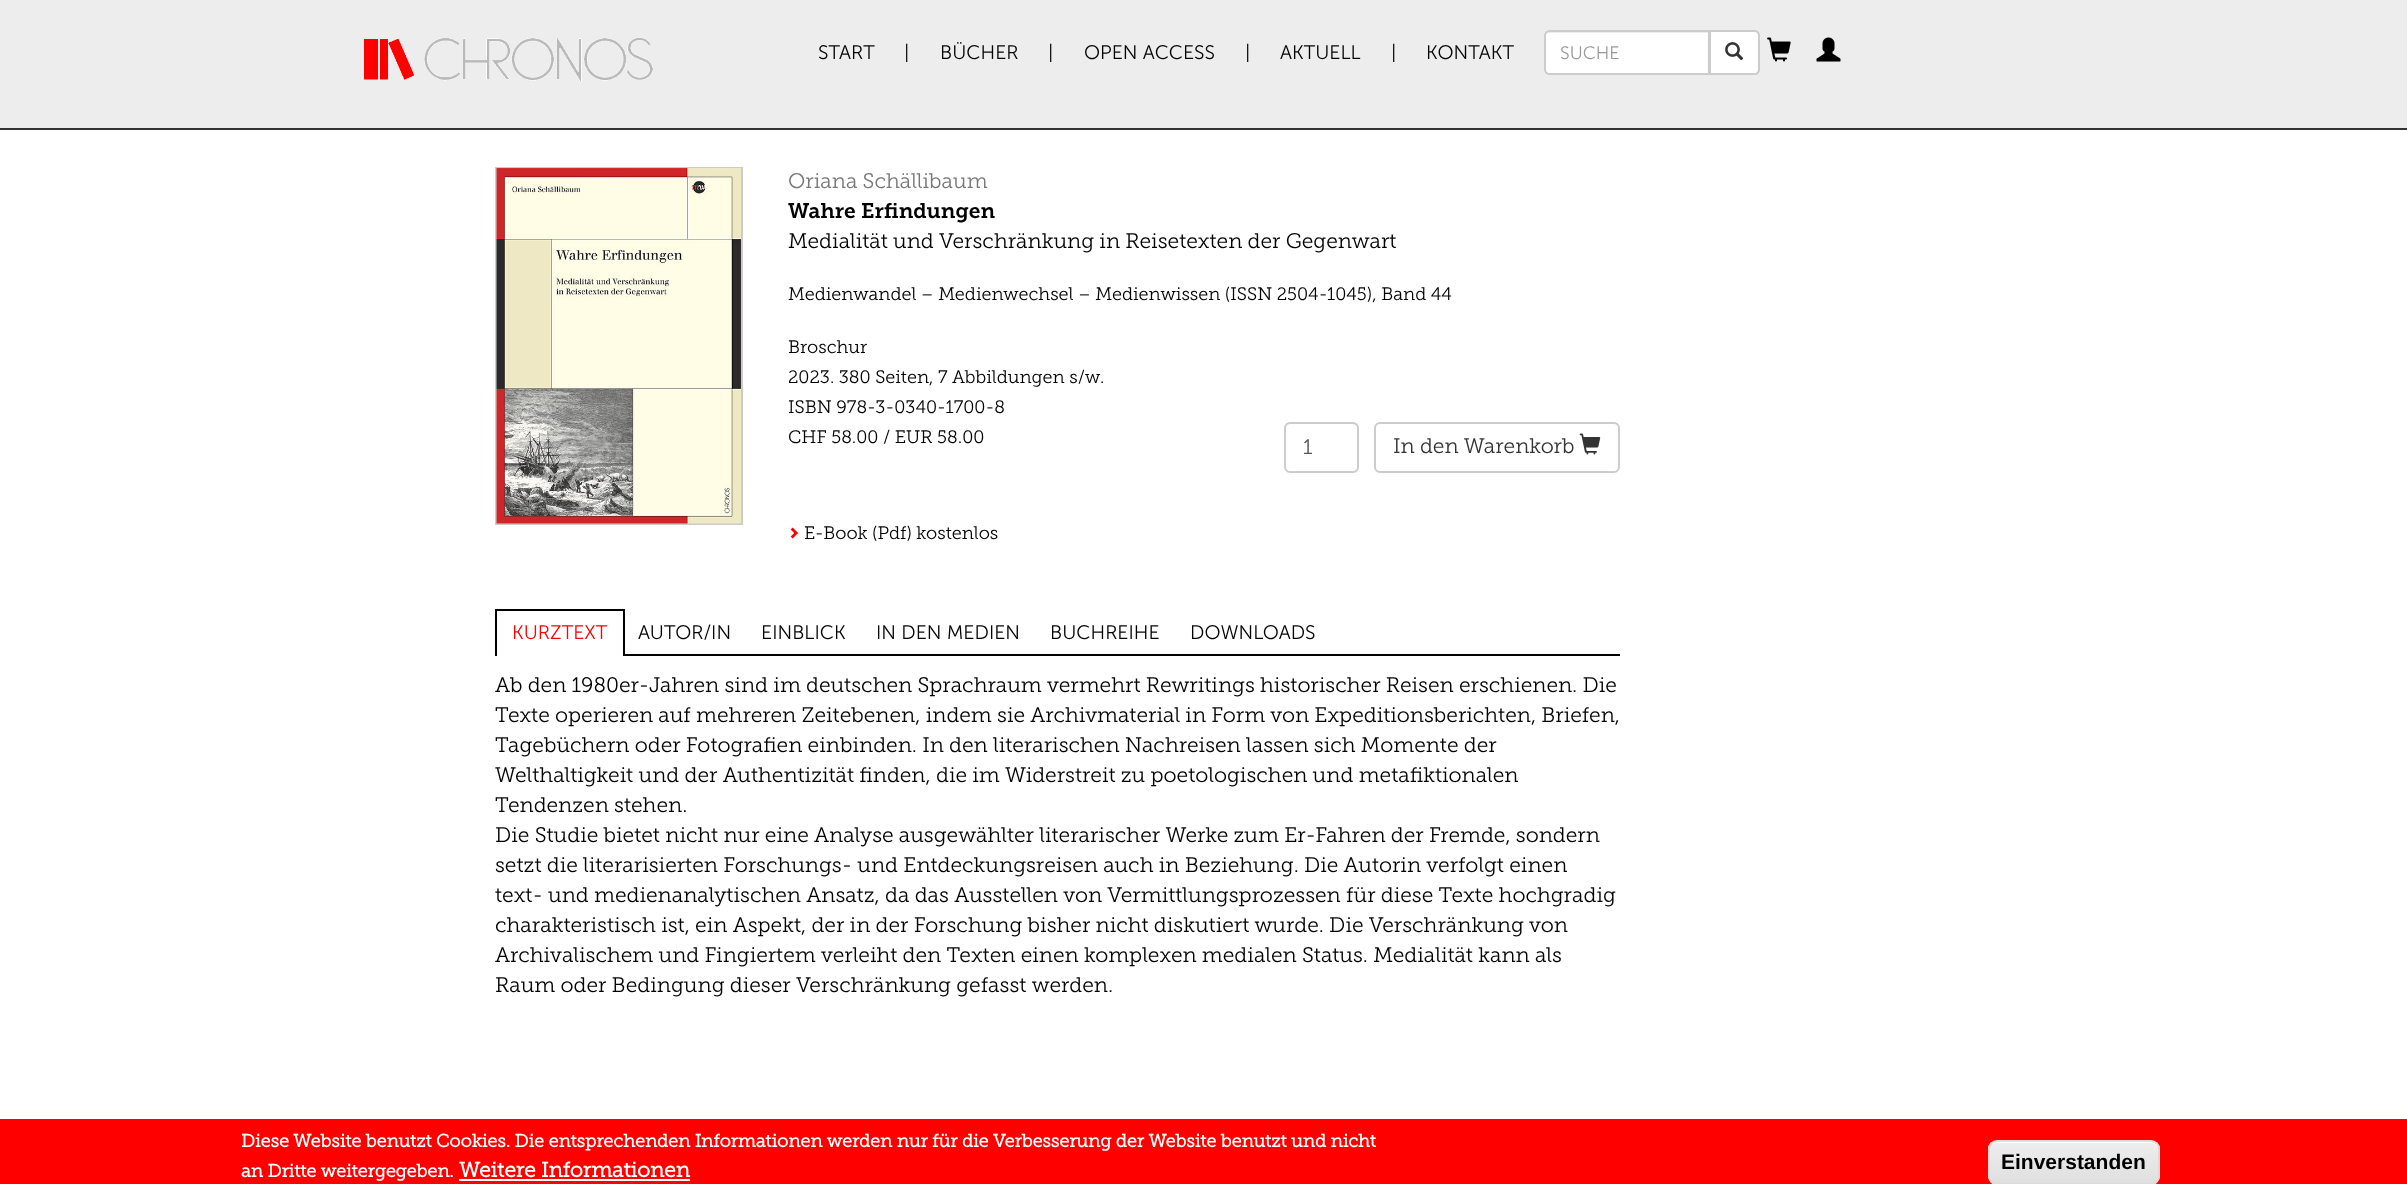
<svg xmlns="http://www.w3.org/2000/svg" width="2407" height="1184">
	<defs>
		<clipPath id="clip1"><rect x="1988" y="1140" width="172" height="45" rx="9" /></clipPath>
		<linearGradient id="g1" gradientUnits="userSpaceOnUse" x1="2074" y1="1142" x2="2074" y2="1184"><stop offset="0.05" stop-color="#EDEDED" /><stop offset="1" stop-color="#DFDFDF" /></linearGradient>
	</defs>
	<rect width="100%" height="100%" fill="#FFFFFF" />
	<rect x="0" y="0" width="2407" height="128" fill="#EDEDED" />
	<rect x="0" y="128" width="2407" height="2" fill="#333333" />
	<image x="364" y="36" width="289" height="47" href="assets/img1.png" />
	<g font-family="Museo Sans" font-size="19.5" font-weight="300" fill="#000000">
		<text x="818" y="59">START</text>
		<text x="904" y="59">|</text>
		<text x="940" y="59">BÜCHER</text>
		<text x="1048" y="59">|</text>
		<text x="1084" y="59">OPEN ACCESS</text>
		<text x="1245" y="59">|</text>
		<text x="1280" y="59">AKTUELL</text>
		<text x="1391" y="59">|</text>
		<text x="1426" y="59">KONTAKT</text>
	</g>
	<path d="M1549 30H1710V75H1549C1546 75 1544 73 1544 70V35C1544 32 1546 30 1549 30Z" fill="#FFFFFF" />
	<path d="M1548 33H1708V74H1709V32H1548C1546 32 1545 34 1545 36C1545 34 1546 33 1548 33Z" fill="#ECECEC" />
	<path d="M1549 31H1709V74H1549C1547 74 1545 72 1545 70V35C1545 33 1547 31 1549 31Z" fill="none" stroke="#CCCCCC" stroke-width="2" />
	<text x="1560" y="59" font-family="Museo Sans" font-size="18" font-weight="300" fill="#999999">SUCHE</text>
	<path d="M1710 31H1755C1757 31 1759 33 1759 35V70C1759 72 1757 74 1755 74H1710Z" fill="#FFFFFF" stroke="#CCCCCC" stroke-width="2" />
	<image x="1725" y="42" width="19" height="19" href="assets/img2.png" />
	<image x="1767" y="37" width="24" height="25" href="assets/img3.png" />
	<image x="1816" y="37" width="25" height="25" href="assets/img4.png" />
	<rect x="496" y="168" width="246" height="356" fill="none" stroke="#CCCCCC" stroke-width="2" />
	<image x="496" y="168" width="245" height="356" href="assets/img5.png" />
	<text x="788" y="188" font-family="Museo Slab" font-size="21" font-weight="300" fill="#777777">Oriana Schällibaum</text>
	<text x="788" y="218" font-family="Museo Slab" font-size="21" font-weight="600" fill="#000000">Wahre Erfindungen</text>
	<text x="788" y="248" font-family="Museo Slab" font-size="21" font-weight="300" fill="#000000">Medialität und Verschränkung in Reisetexten der Gegenwart</text>
	<g font-family="Museo Slab" font-size="18" font-weight="300" fill="#000000">
		<text x="788" y="300">Medienwandel – Medienwechsel – Medienwissen (ISSN 2504-1045), Band 44</text>
		<text x="788" y="353">Broschur</text>
		<text x="788" y="383">2023. 380 Seiten, 7 Abbildungen s/w.</text>
		<text x="788" y="413">ISBN 978-3-0340-1700-8</text>
		<text x="788" y="443">CHF 58.00 / EUR 58.00</text>
	</g>
	<path d="M1290 424H1353C1355 424 1358 427 1358 429C1358 421 1348 423 1343 423H1301C1296 423 1286 421 1286 429C1286 427 1288 424 1290 424Z" fill="#ECECEC" />
	<rect x="1285" y="423" width="73" height="49" rx="5" fill="none" stroke="#CCCCCC" stroke-width="2" />
	<text x="1303" y="454" font-family="Museo Slab" font-size="21" font-weight="300" fill="#555555">1</text>
	<rect x="1375" y="423" width="244" height="49" rx="5" fill="none" stroke="#CCCCCC" stroke-width="2" />
	<text x="1393" y="453" font-family="Museo Slab" font-size="21" font-weight="300" fill="#333333">In den Warenkorb</text>
	<image x="1579" y="433" width="22" height="22" href="assets/img6.png" />
	<image x="790" y="527" width="8" height="12" href="assets/img7.png" />
	<text x="804" y="539" font-family="Museo Slab" font-size="18" font-weight="300" fill="#000000">E-Book (Pdf) kostenlos</text>
	<rect x="625" y="654" width="995" height="2" fill="#000000" />
	<rect x="495" y="609" width="129" height="2" fill="#000000" />
	<rect x="623" y="609" width="2" height="47" fill="#000000" />
	<rect x="495" y="609" width="2" height="47" fill="#000000" />
	<text x="512" y="639" font-family="Museo Sans" font-size="19.5" font-weight="300" fill="#FF0000">KURZTEXT</text>
	<g font-family="Museo Sans" font-size="19.5" font-weight="300" fill="#000000">
		<text x="638" y="639">AUTOR/IN</text>
		<text x="761" y="639">EINBLICK</text>
		<text x="876" y="639">IN DEN MEDIEN</text>
		<text x="1050" y="639">BUCHREIHE</text>
		<text x="1190" y="639">DOWNLOADS</text>
	</g>
	<g font-family="Museo Slab" font-size="21" font-weight="300" fill="#000000">
		<text x="495" y="692">Ab den 1980er-Jahren sind im deutschen Sprachraum vermehrt Rewritings historischer Reisen erschienen. Die</text>
		<text x="495" y="722">Texte operieren auf mehreren Zeitebenen, indem sie Archivmaterial in Form von Expeditionsberichten, Briefen,</text>
		<text x="495" y="752">Tagebüchern oder Fotografien einbinden. In den literarischen Nachreisen lassen sich Momente der</text>
		<text x="495" y="782">Welthaltigkeit und der Authentizität finden, die im Widerstreit zu poetologischen und metafiktionalen</text>
		<text x="495" y="812">Tendenzen stehen.</text>
		<text x="495" y="842">Die Studie bietet nicht nur eine Analyse ausgewählter literarischer Werke zum Er-Fahren der Fremde, sondern</text>
		<text x="495" y="872">setzt die literarisierten Forschungs- und Entdeckungsreisen auch in Beziehung. Die Autorin verfolgt einen</text>
		<text x="495" y="902">text- und medienanalytischen Ansatz, da das Ausstellen von Vermittlungsprozessen für diese Texte hochgradig</text>
		<text x="495" y="932">charakteristisch ist, ein Aspekt, der in der Forschung bisher nicht diskutiert wurde. Die Verschränkung von</text>
		<text x="495" y="962">Archivalischem und Fingiertem verleiht den Texten einen komplexen medialen Status. Medialität kann als</text>
		<text x="495" y="992">Raum oder Bedingung dieser Verschränkung gefasst werden.</text>
	</g>
	<rect x="0" y="1119" width="2407" height="65" fill="#FF0000" />
	<g font-family="Museo Slab" font-size="18" font-weight="700" fill="#FFFFFF">
		<text x="241" y="1147">Diese Website benutzt Cookies. Die entsprechenden Informationen werden nur für die Verbesserung der Website benutzt und nicht</text>
		<text x="241" y="1177">an Dritte weitergegeben.</text>
	</g>
	<text x="459" y="1177" font-family="Museo Slab" font-size="21" font-weight="700" fill="#FFFFFF">Weitere Informationen</text>
	<rect x="459" y="1179" width="231" height="2" fill="#FFFFFF" />
	<g clip-path="url(#clip1)">
		<rect x="1988" y="1142" width="172" height="42" fill="url(#g1)" />
	</g>
	<path d="M1996 1143H2151C2155 1143 2158 1146 2158 1150V1178V1181C2158 1179 2159 1178 2159 1176V1150C2159 1146 2155 1142 2151 1142H1997C1993 1142 1989 1146 1989 1150C1989 1146 1992 1143 1996 1143Z" fill="#FFFFFF" />
	<rect x="1989" y="1141" width="170" height="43" rx="8" fill="none" stroke="#DCDCDC" stroke-width="2" />
	<text x="2001" y="1169" font-family="Liberation Sans" font-size="21" font-weight="700" fill="#000000">Einverstanden</text>
</svg>
